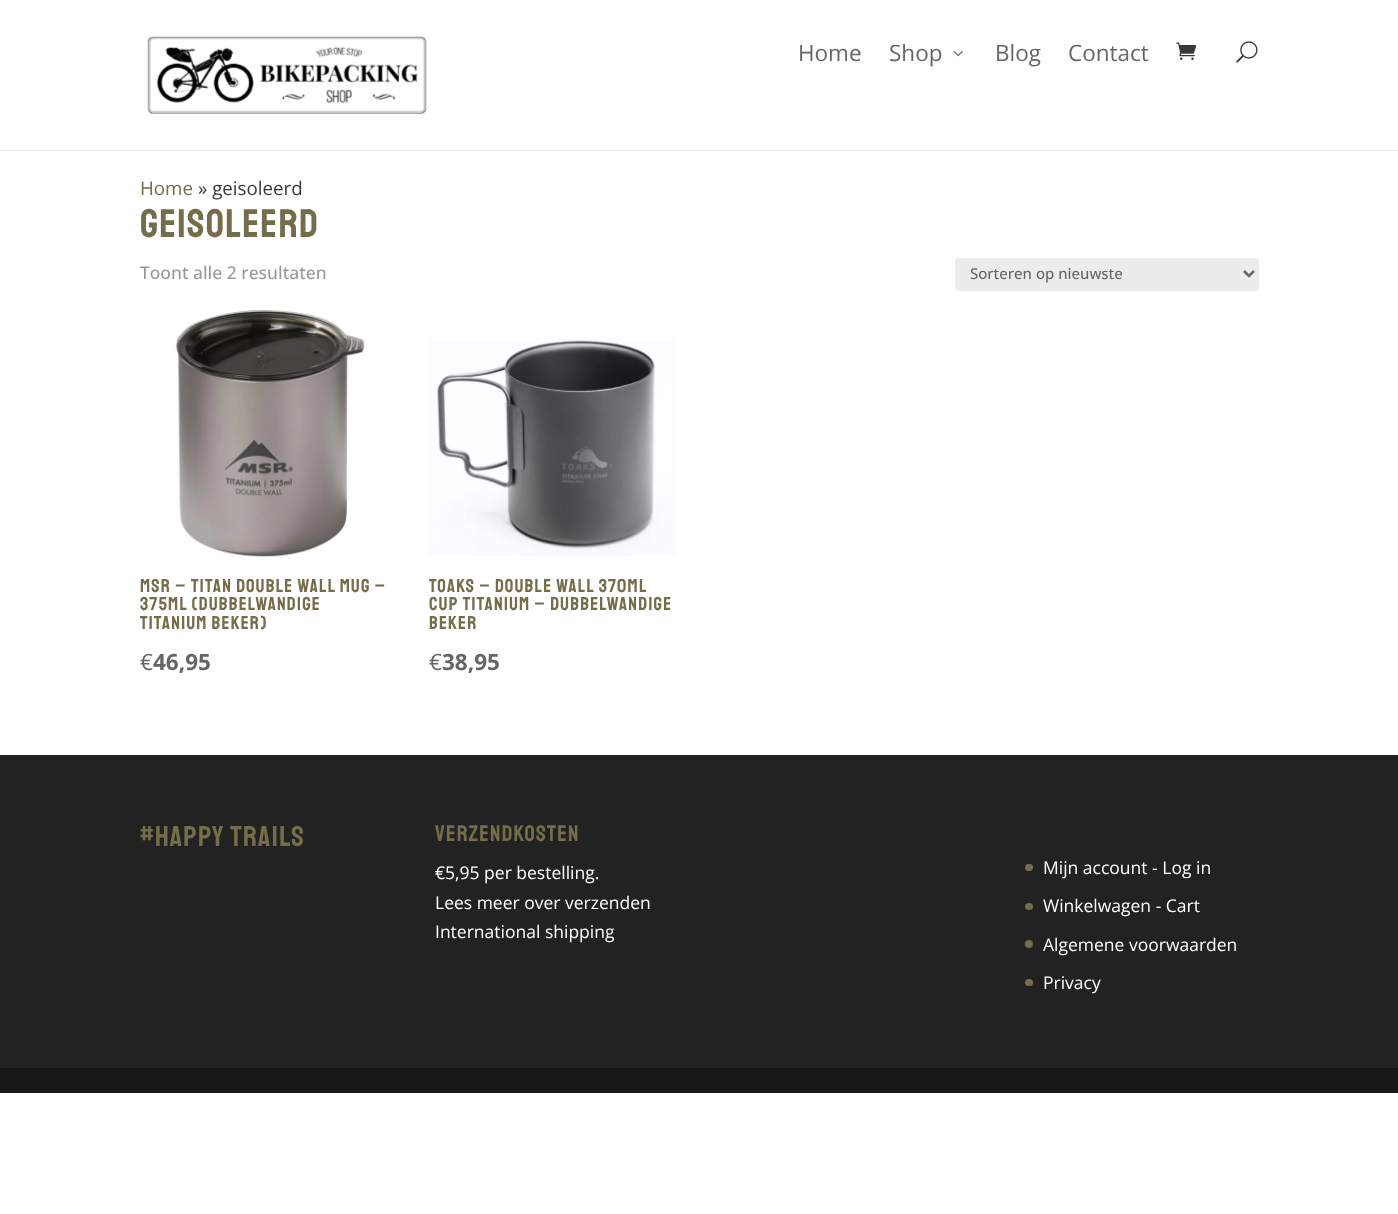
<svg xmlns="http://www.w3.org/2000/svg" width="1398" height="1214">
	<rect width="100%" height="100%" fill="#FFFFFF" />
	<path d="M0 150V151H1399V1V150Z" fill="#E6E6E6" />
	<image x="147" y="36" width="280" height="78" href="assets/img1.png" />
	<g font-family="Open Sans" font-size="22.5" fill="#666666">
		<text x="798" y="61">Home</text>
		<text x="889" y="61">Shop</text>
	</g>
	<image x="953" y="51" width="10" height="6" href="assets/img2.png" />
	<g font-family="Open Sans" font-size="22.5" fill="#666666">
		<text x="995" y="61">Blog</text>
		<text x="1068" y="61">Contact</text>
	</g>
	<image x="1176" y="42" width="21" height="18" href="assets/img3.png" />
	<image x="1236" y="41" width="22" height="22" href="assets/img4.png" />
	<text x="140" y="195" font-family="Open Sans" font-size="18.75" fill="#756C49">Home</text>
	<text x="198" y="195" font-family="Open Sans" font-size="18.75" fill="#383838">» geisoleerd</text>
	<text x="140" y="237" font-family="Staatliches" font-size="40" letter-spacing="1.25" fill="#756C49">geisoleerd</text>
	<text x="140" y="279" font-family="Open Sans" font-size="17.5" font-weight="500" fill="#999999">Toont alle 2 resultaten</text>
	<rect x="955" y="258" width="304" height="33" rx="4" fill="#ECECEC" />
	<path d="M1244 271L1249 276L1254 271" fill="none" stroke="#666666" stroke-width="2.5" />
	<text x="970" y="279" font-family="Open Sans" font-size="15" font-weight="500" fill="#666666">Sorteren op nieuwste</text>
	<image x="175" y="310" width="190" height="247" href="assets/img5.png" />
	<g font-family="Staatliches" font-size="18.75" letter-spacing="1.25" fill="#756C49">
		<text x="140" y="592">MSR – Titan double wall mug –</text>
		<text x="140" y="610">375ml (dubbelwandige</text>
		<text x="140" y="629">titanium beker)</text>
	</g>
	<text x="140" y="670" font-family="Open Sans" font-size="22.5" fill="#666666">€</text>
	<text x="153" y="670" font-family="Open Sans" font-size="22.5" font-weight="700" fill="#666666">46,95</text>
	<image x="429" y="338" width="247" height="218" href="assets/img6.png" />
	<g font-family="Staatliches" font-size="18.75" letter-spacing="1.25" fill="#756C49">
		<text x="429" y="592">TOAKS – Double Wall 370ml</text>
		<text x="429" y="610">Cup Titanium – dubbelwandige</text>
		<text x="429" y="629">beker</text>
	</g>
	<text x="429" y="670" font-family="Open Sans" font-size="22.5" fill="#666666">€</text>
	<text x="442" y="670" font-family="Open Sans" font-size="22.5" font-weight="700" fill="#666666">38,95</text>
	<rect x="0" y="755" width="1398" height="313" fill="#222222" />
	<text x="140" y="846" font-family="Staatliches" font-size="28.75" letter-spacing="1.25" fill="#756C49">#Happy trails</text>
	<text x="435" y="841" font-family="Staatliches" font-size="22.5" letter-spacing="1.25" fill="#756C49">Verzendkosten</text>
	<g font-family="Open Sans" font-size="17.5" fill="#FFFFFF">
		<text x="435" y="879">€5,95 per bestelling.</text>
		<text x="435" y="909">Lees meer over verzenden</text>
		<text x="435" y="938">International shipping</text>
	</g>
	<rect x="1025" y="864" width="8" height="7" rx="3.5" fill="#756C49" />
	<text x="1043" y="874" font-family="Open Sans" font-size="17.5" fill="#FFFFFF">Mijn account - Log in</text>
	<rect x="1025" y="903" width="8" height="7" rx="3.5" fill="#756C49" />
	<text x="1043" y="912" font-family="Open Sans" font-size="17.5" fill="#FFFFFF">Winkelwagen - Cart</text>
	<circle cx="1029" cy="944" r="4" fill="#756C49" />
	<text x="1043" y="951" font-family="Open Sans" font-size="17.5" fill="#FFFFFF">Algemene voorwaarden</text>
	<rect x="1025" y="979" width="8" height="7" rx="3.5" fill="#756C49" />
	<text x="1043" y="989" font-family="Open Sans" font-size="17.5" fill="#FFFFFF">Privacy</text>
	<rect x="0" y="1068" width="1398" height="25" fill="#171717" />
</svg>
